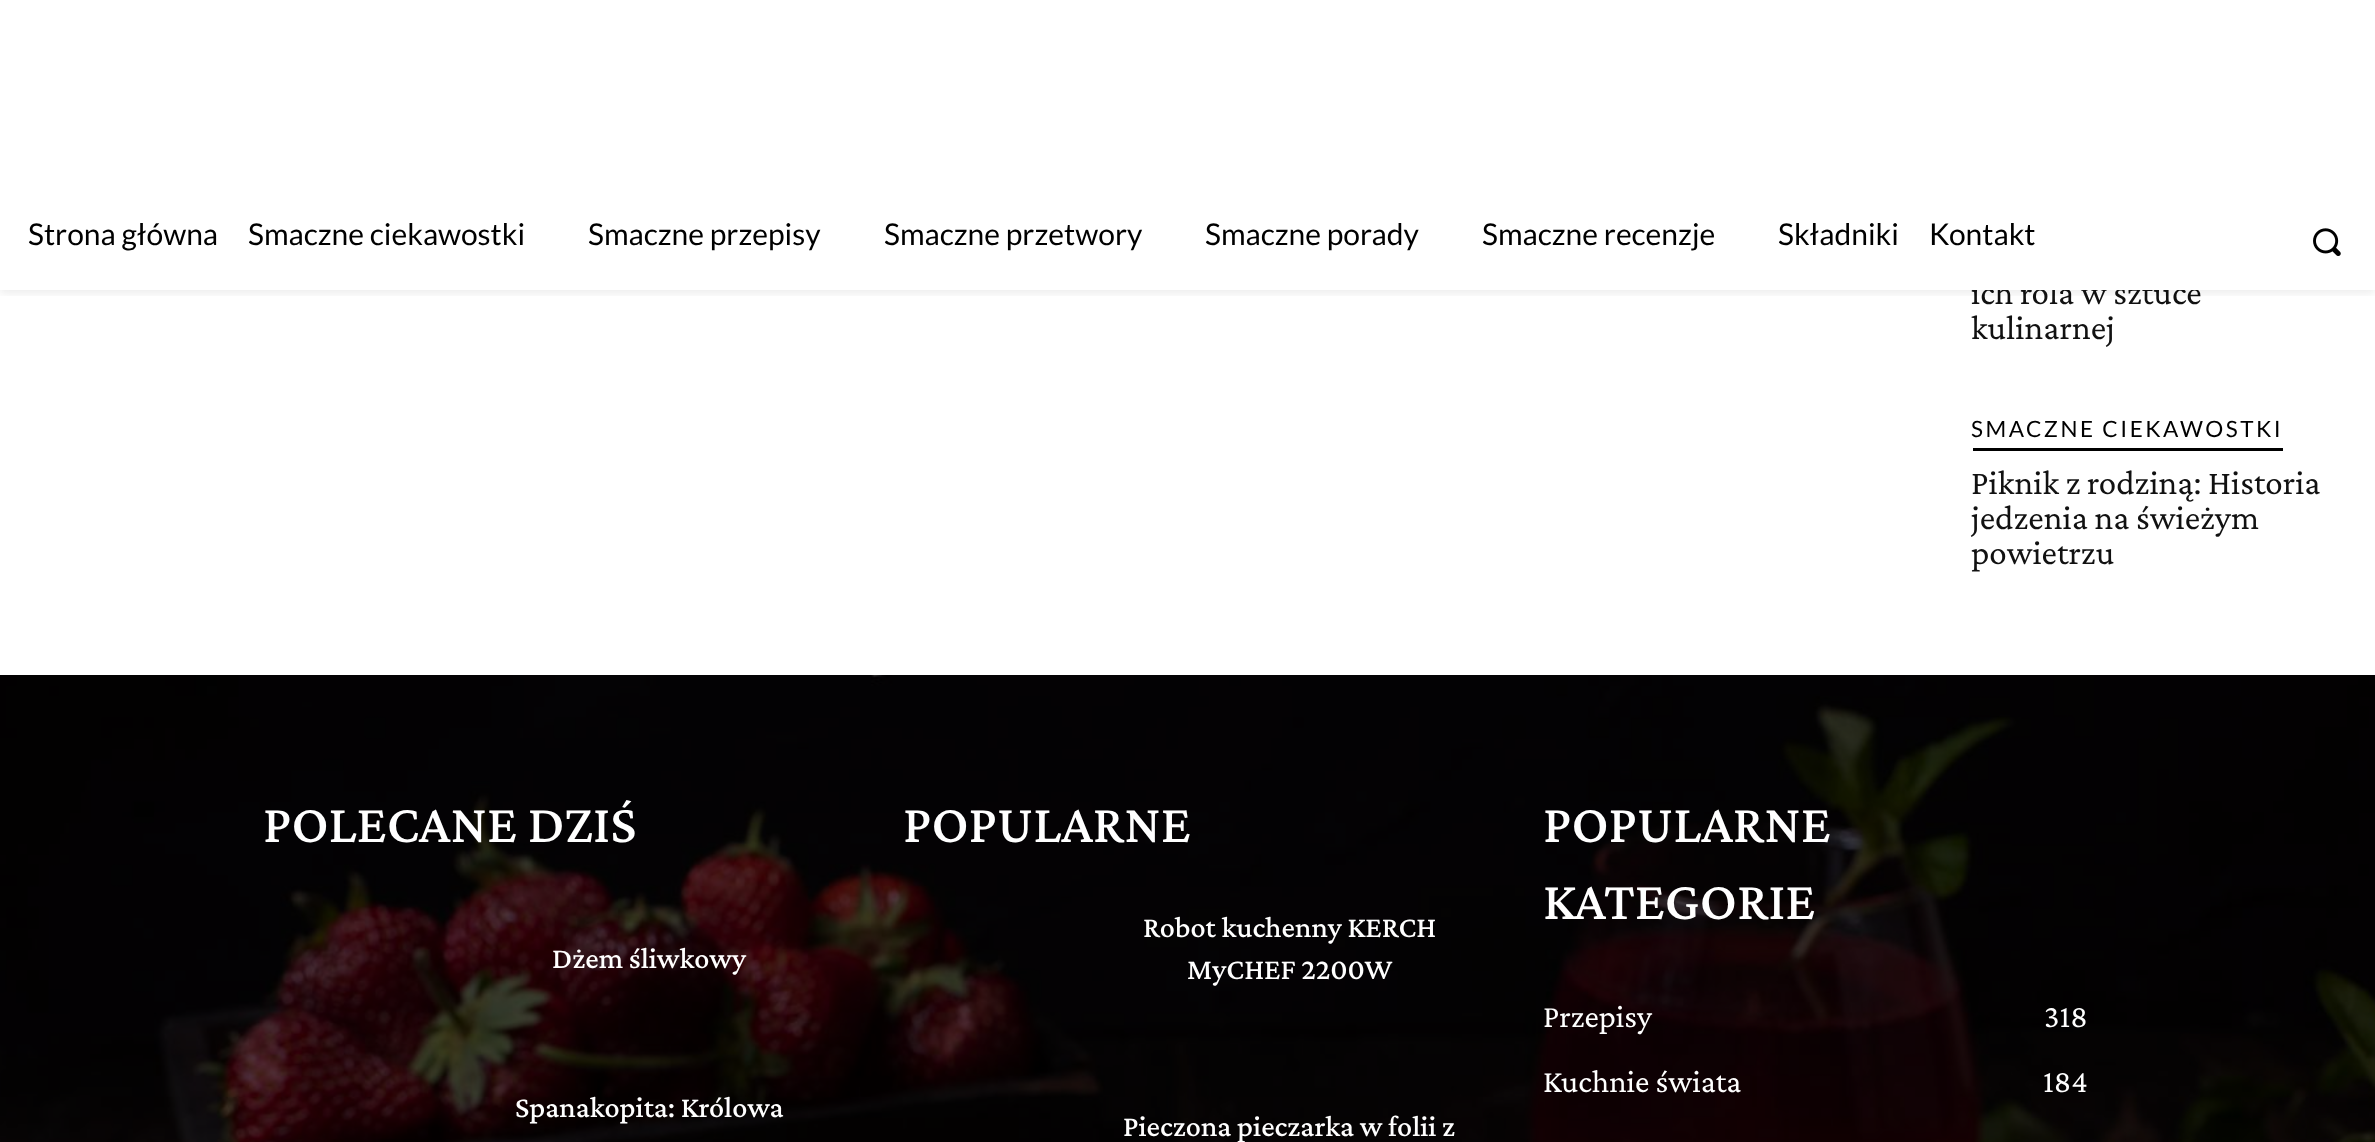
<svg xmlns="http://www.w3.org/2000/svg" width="2375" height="1142">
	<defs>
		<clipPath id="clip1"><rect x="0" y="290" width="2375" height="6" /></clipPath>
	</defs>
	<rect width="100%" height="100%" fill="#FFFFFF" />
	<text x="1971" y="304" font-family="Crimson Pro" font-size="35" fill="#111111">ich rola w sztuce</text>
	<rect x="1973" y="280" width="226" height="10" fill="#FFFFFF" />
	<g clip-path="url(#clip1)">
		<rect x="0" y="3" width="2375" height="290" fill="#000000" fill-opacity="0.08" filter="blur(5px)" />
	</g>
	<g font-family="Lato" font-size="30" fill="#000000">
		<text x="28" y="245">Strona główna</text>
		<text x="248" y="245">Smaczne ciekawostki</text>
		<text x="588" y="245">Smaczne przepisy</text>
		<text x="884" y="245">Smaczne przetwory</text>
		<text x="1205" y="245">Smaczne porady</text>
		<text x="1482" y="245">Smaczne recenzje</text>
		<text x="1778" y="245">Składniki</text>
		<text x="1929" y="245">Kontakt</text>
	</g>
	<image x="2313" y="228" width="28" height="28" href="assets/img1.png" />
	<text x="1971" y="339" font-family="Crimson Pro" font-size="35" fill="#111111">kulinarnej</text>
	<rect x="1973" y="448" width="310" height="3" fill="#000000" />
	<text x="1971" y="437" font-family="Lato" font-size="22.5" letter-spacing="2.5" fill="#000000">SMACZNE CIEKAWOSTKI</text>
	<g font-family="Crimson Pro" font-size="35" fill="#111111">
		<text x="1971" y="494">Piknik z rodziną: Historia</text>
		<text x="1971" y="529">jedzenia na świeżym</text>
		<text x="1971" y="564">powietrzu</text>
	</g>
	<rect x="0" y="675" width="2375" height="467" fill="#000000" />
	<image x="0" y="675" width="2375" height="467" href="assets/img2.png" />
	<text x="263" y="842" font-family="Crimson Pro" font-size="55" font-weight="500" fill="#FFFFFF">POLECANE DZIŚ</text>
	<g font-family="Crimson Pro" font-size="30" font-weight="500" fill="#FFFFFF">
		<text x="552" y="968">Dżem śliwkowy</text>
		<text x="515" y="1117">Spanakopita: Królowa</text>
	</g>
	<text x="903" y="842" font-family="Crimson Pro" font-size="55" font-weight="500" fill="#FFFFFF">POPULARNE</text>
	<g font-family="Crimson Pro" font-size="30" font-weight="500" fill="#FFFFFF">
		<text x="1143" y="937">Robot kuchenny KERCH</text>
		<text x="1187" y="979">MyCHEF 2200W</text>
		<text x="1123" y="1136">Pieczona pieczarka w folii z</text>
	</g>
	<g font-family="Crimson Pro" font-size="55" font-weight="500" fill="#FFFFFF">
		<text x="1543" y="842">POPULARNE</text>
		<text x="1543" y="919">KATEGORIE</text>
	</g>
	<g font-family="Crimson Pro" font-size="32.5" fill="#FFFFFF">
		<text x="1543" y="1027">Przepisy</text>
		<text x="2044" y="1027">318</text>
		<text x="1543" y="1092">Kuchnie świata</text>
		<text x="2043" y="1092">184</text>
	</g>
</svg>
